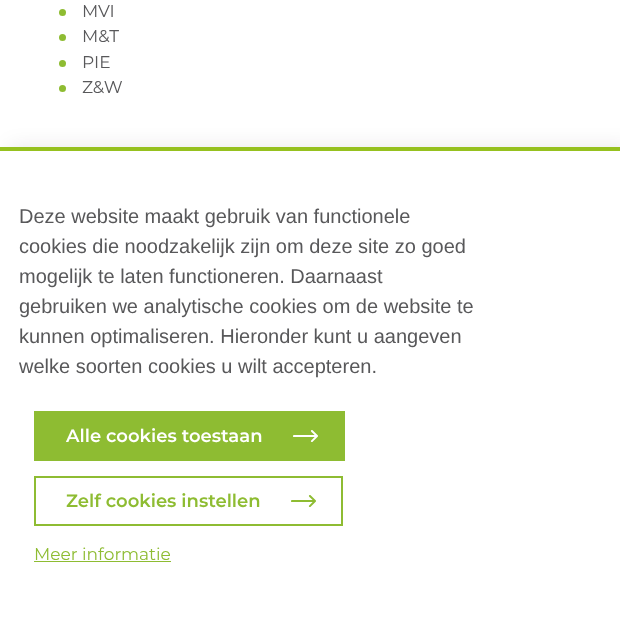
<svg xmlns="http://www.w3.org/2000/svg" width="620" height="618">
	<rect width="100%" height="100%" fill="#FFFFFF" />
	<circle cx="62.5" cy="12.5" r="3.5" fill="#8EBC32" />
	<text x="82" y="17" font-family="Montserrat" font-size="17" fill="#58585A">MVI</text>
	<circle cx="62.5" cy="37.5" r="3.5" fill="#8EBC32" />
	<text x="82" y="42" font-family="Montserrat" font-size="17" fill="#58585A">M&amp;T</text>
	<circle cx="62.5" cy="63.5" r="3.5" fill="#8EBC32" />
	<text x="82" y="68" font-family="Montserrat" font-size="17" fill="#58585A">PIE</text>
	<circle cx="62.5" cy="88.5" r="3.5" fill="#8EBC32" />
	<text x="82" y="93" font-family="Montserrat" font-size="17" fill="#58585A">Z&amp;W</text>
	<rect x="10" y="147" width="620" height="471" fill="#1A171B" fill-opacity="0.1" filter="blur(10px)" />
	<rect x="0" y="151" width="620" height="467" fill="#FFFFFF" />
	<rect x="0" y="147" width="620" height="4" fill="#96C11F" />
	<g font-family="Liberation Sans" font-size="20" fill="#58585A">
		<text x="19" y="223">Deze website maakt gebruik van functionele</text>
		<text x="19" y="253">cookies die noodzakelijk zijn om deze site zo goed</text>
		<text x="19" y="283">mogelijk te laten functioneren. Daarnaast</text>
		<text x="19" y="313">gebruiken we analytische cookies om de website te</text>
		<text x="19" y="343">kunnen optimaliseren. Hieronder kunt u aangeven</text>
		<text x="19" y="373">welke soorten cookies u wilt accepteren.</text>
	</g>
	<rect x="34" y="411" width="311" height="50" fill="#8EBC32" />
	<text x="66" y="442" font-family="Montserrat" font-size="18" font-weight="600" fill="#FFFFFF">Alle cookies toestaan</text>
	<image x="293" y="430" width="25" height="12" href="assets/img1.png" />
	<rect x="35" y="477" width="307" height="48" fill="none" stroke="#8EBC32" stroke-width="2" />
	<text x="66" y="507" font-family="Montserrat" font-size="18" font-weight="600" fill="#8EBC32">Zelf cookies instellen</text>
	<image x="291" y="495" width="25" height="12" href="assets/img2.png" />
	<text x="34" y="560" font-family="Montserrat" font-size="17" fill="#8EBC32">Meer informatie</text>
	<rect x="34" y="561" width="137" height="1" fill="#8EBC32" />
</svg>
